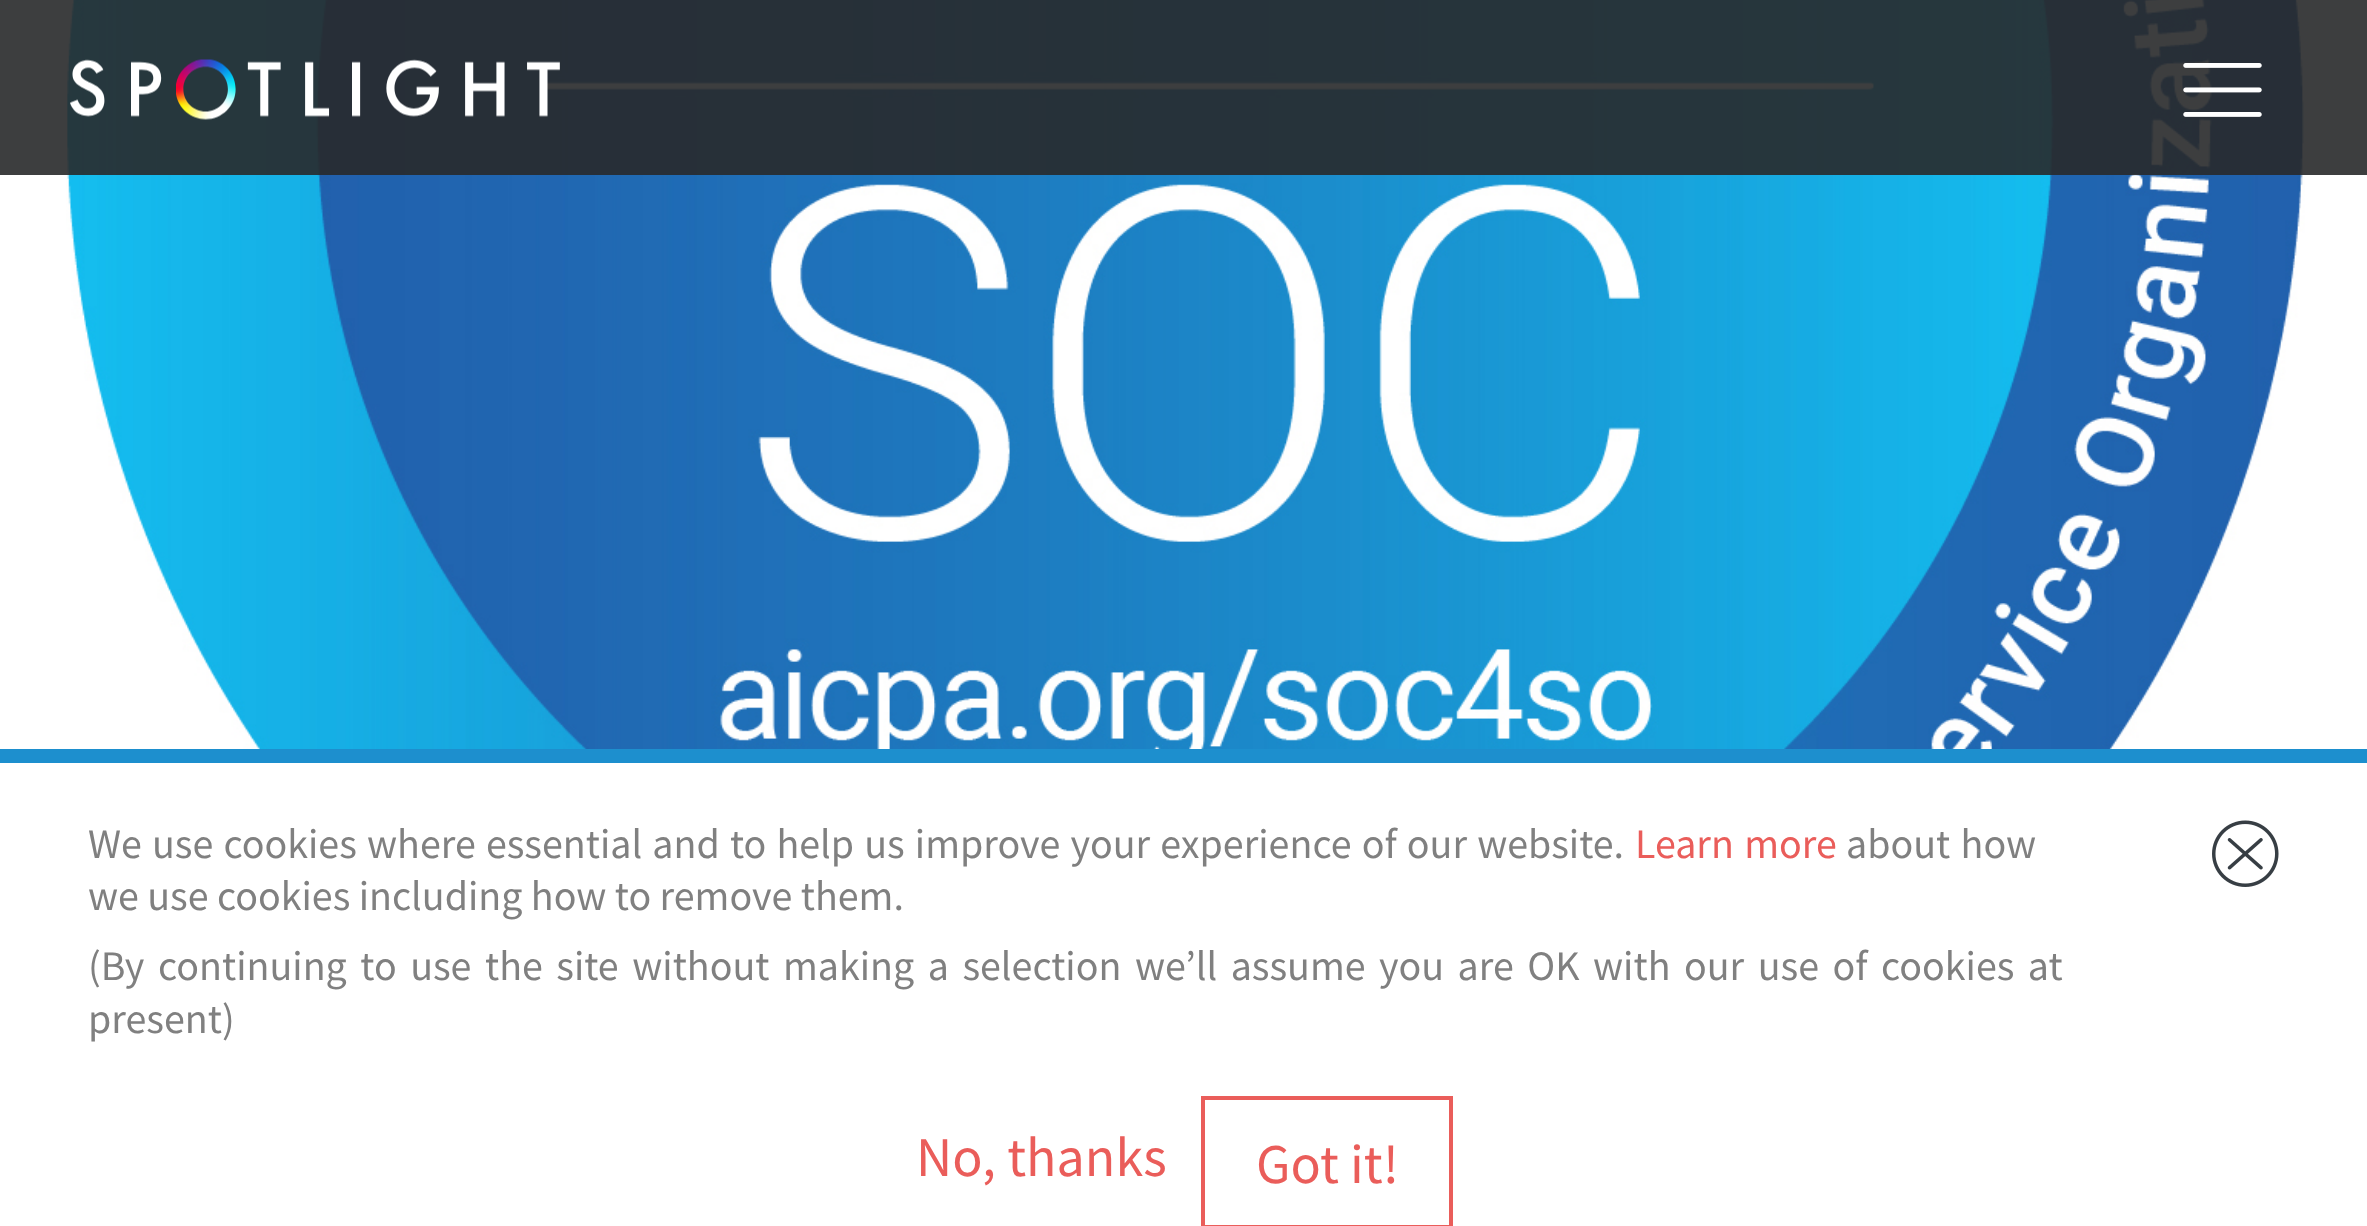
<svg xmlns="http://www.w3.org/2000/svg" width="2367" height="1226">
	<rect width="100%" height="100%" fill="#FFFFFF" />
	<image x="66" y="0" width="2239" height="749" href="assets/img3.png" />
	<rect x="0" y="0" width="2367" height="175" fill="#28292A" fill-opacity="0.9" />
	<image x="70" y="59" width="490" height="61" href="assets/img1.png" />
	<image x="2183" y="63" width="79" height="54" href="assets/img2.png" />
	<rect x="0" y="749" width="2367" height="14" fill="#1D8FCE" />
	<text x="88" y="858" word-spacing="1.75" font-family="Source Sans Pro" font-size="42" fill="#808080">We use cookies where essential and to help us improve your experience of our website.</text>
	<text x="1635" y="858" word-spacing="2" font-family="Source Sans Pro" font-size="42" fill="#EA5D5A">Learn more</text>
	<g font-family="Source Sans Pro" font-size="42" fill="#808080">
		<text x="1846" y="858" word-spacing="2">about how</text>
		<text x="88" y="910">we use cookies including how to remove them.</text>
		<text x="88" y="980" word-spacing="5.1">(By continuing to use the site without making a selection we’ll assume you are OK with our use of cookies at</text>
		<text x="88" y="1033">present)</text>
	</g>
	<image x="2212" y="820" width="67" height="67" href="assets/img4.png" />
	<text x="916" y="1176" font-family="Source Sans Pro" font-size="56" fill="#EA5D5A">No, thanks</text>
	<rect x="1203" y="1098" width="248" height="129" fill="none" stroke="#EA5D5A" stroke-width="4" />
	<text x="1256" y="1183" font-family="Source Sans Pro" font-size="56" fill="#EA5D5A">Got it!</text>
</svg>
